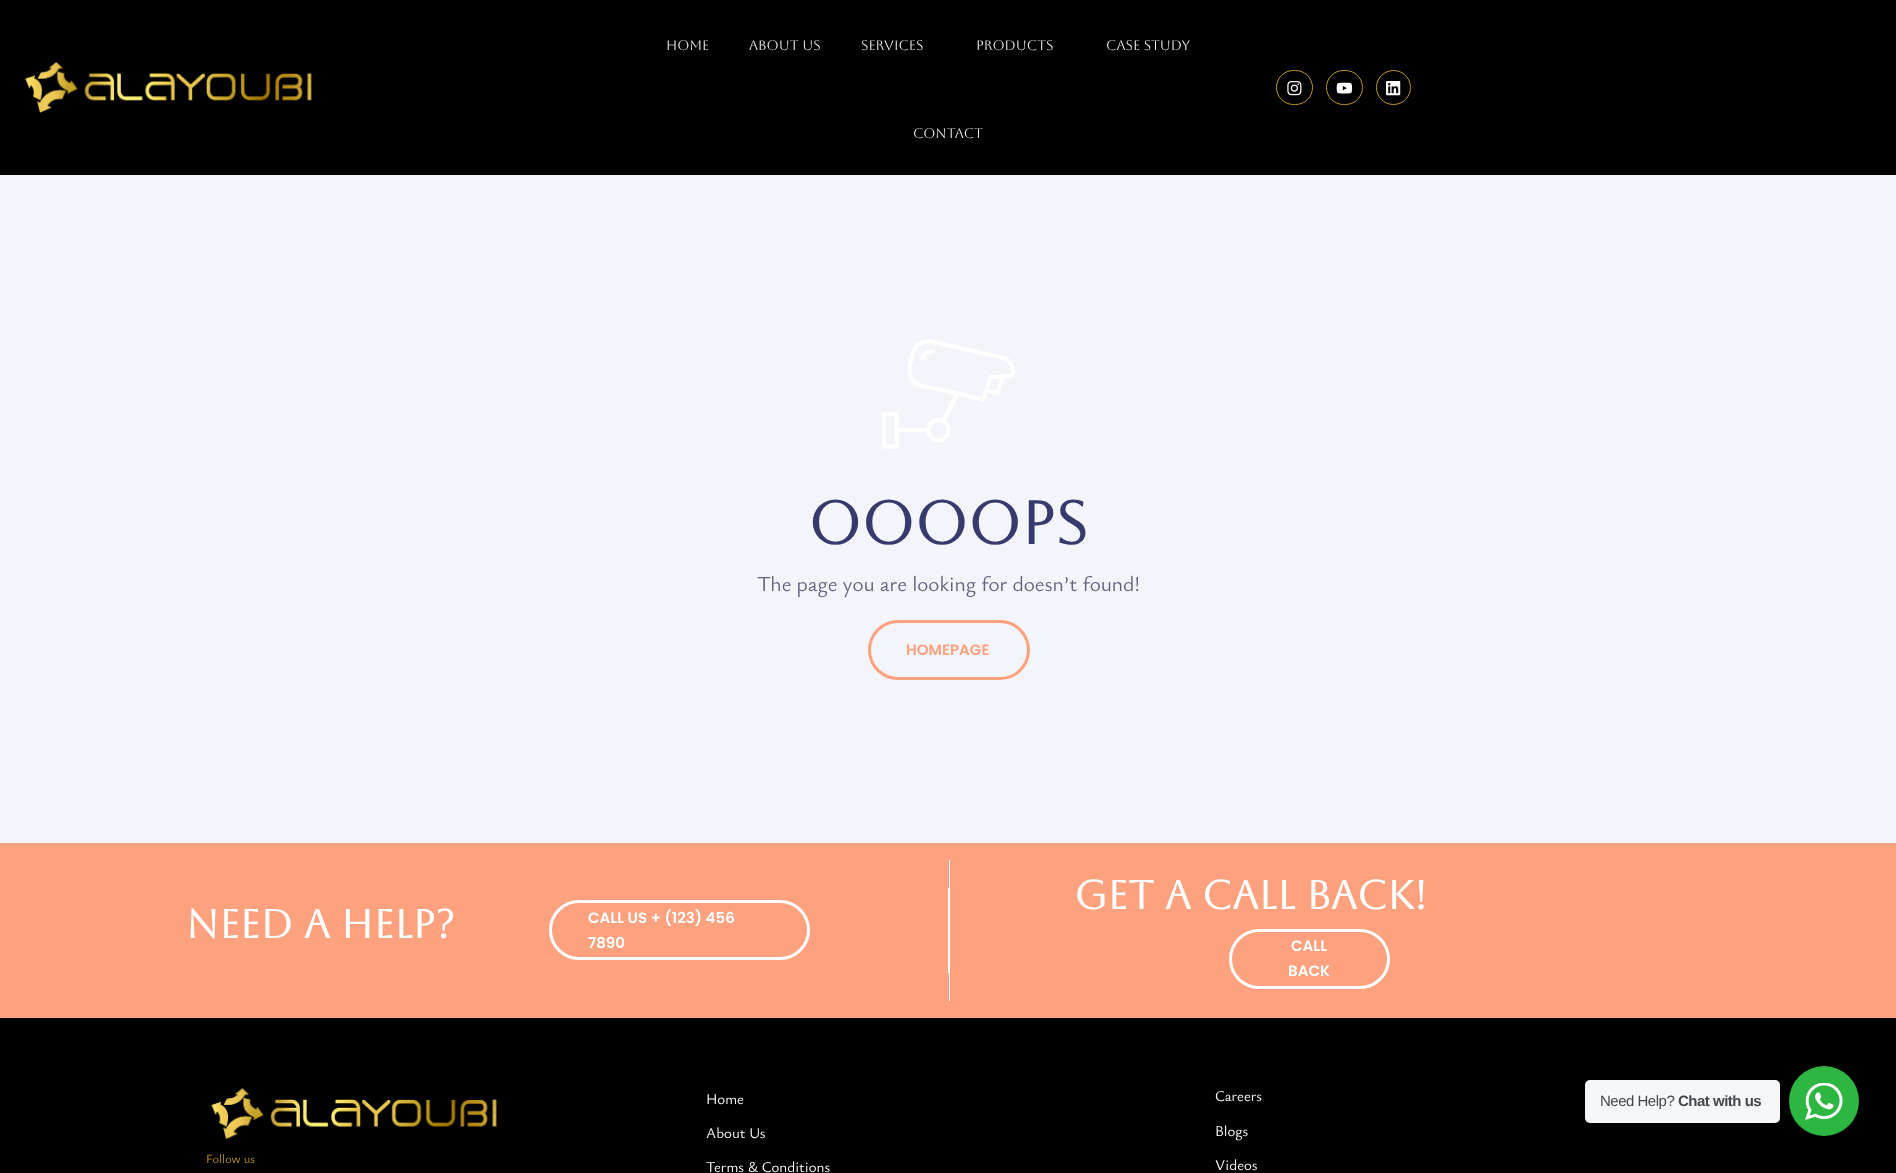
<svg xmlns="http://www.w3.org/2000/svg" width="1896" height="1173">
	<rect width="100%" height="100%" fill="#000000" />
	<image x="25" y="62" width="287" height="51" href="assets/img1.png" />
	<g font-family="Aboreto" font-size="13.75" fill="#FFFFFF">
		<text x="666" y="50">Home</text>
		<text x="749" y="50">About Us</text>
		<text x="861" y="50">Services</text>
		<text x="976" y="50">Products</text>
		<text x="1106" y="50">Case Study</text>
		<text x="913" y="138">Contact</text>
	</g>
	<rect x="1276.5" y="70.5" width="36" height="34" rx="17" fill="none" stroke="#BD9622" />
	<image x="1287" y="81" width="15" height="15" href="assets/img2.png" />
	<rect x="1326.5" y="70.5" width="36" height="34" rx="17" fill="none" stroke="#BD9622" />
	<image x="1336" y="82" width="17" height="12" href="assets/img3.png" />
	<circle cx="1393.5" cy="87.5" r="17" fill="none" stroke="#BD9622" />
	<image x="1386" y="81" width="15" height="15" href="assets/img4.png" />
	<rect x="0" y="175" width="1896" height="668" fill="#F3F5FB" />
	<image x="882" y="339" width="133" height="110" href="assets/img5.png" />
	<text x="808" y="544" font-family="Aboreto" font-size="60" font-weight="700" fill="#373A6D">Oooops</text>
	<text x="757" y="591" font-family="Ysabeau" font-size="21.25" fill="#626381">The page you are looking for doesn’t found!</text>
	<rect x="869.5" y="621.5" width="159" height="57" rx="28.5" fill="none" stroke="#FDA17F" stroke-width="3" />
	<text x="906" y="655" font-family="Poppins" font-size="15" font-weight="600" fill="#FDA17F">HOMEPAGE</text>
	<rect x="0" y="843" width="1896" height="175" fill="#FDA17F" />
	<rect x="948" y="888" width="1" height="85" fill="#FFFFFF" />
	<text x="186" y="938" font-family="Aboreto" font-size="40" font-weight="700" fill="#FFFFFF">Need a help?</text>
	<rect x="550.5" y="901.5" width="258" height="57" rx="28.5" fill="none" stroke="#FFFFFF" stroke-width="3" />
	<g font-family="Poppins" font-size="15" font-weight="600" fill="#FFFFFF">
		<text x="588" y="923">CALL US + (123) 456</text>
		<text x="588" y="948">7890</text>
	</g>
	<rect x="949" y="860" width="1" height="141" fill="#FFFFFF" />
	<text x="1074" y="909" font-family="Aboreto" font-size="40" font-weight="700" fill="#FFFFFF">Get a call back!</text>
	<rect x="1230.5" y="930.5" width="158" height="57" rx="28.5" fill="none" stroke="#FFFFFF" stroke-width="3" />
	<g font-family="Poppins" font-size="15" font-weight="600" fill="#FFFFFF">
		<text x="1291" y="951">CALL</text>
		<text x="1288" y="976">BACK</text>
	</g>
	<image x="211" y="1088" width="286" height="52" href="assets/img6.png" />
	<text x="206" y="1163" font-family="Ysabeau" font-size="12.5" fill="#BD9622">Follow us</text>
	<g font-family="Ysabeau" font-size="15" fill="#FFFFFF">
		<text x="706" y="1104">Home</text>
		<text x="706" y="1138">About Us</text>
		<text x="706" y="1172">Terms &amp; Conditions</text>
		<text x="1215" y="1101">Careers</text>
		<text x="1215" y="1136">Blogs</text>
		<text x="1215" y="1170">Videos</text>
	</g>
	<rect x="1585" y="1080" width="195" height="43" rx="5" fill="#F5F7F9" />
	<text x="1600" y="1106" font-family="Liberation Sans" font-size="15" letter-spacing="-0.5" fill="#43474E">Need Help?</text>
	<text x="1678" y="1106" font-family="Liberation Sans" font-size="15" font-weight="700" letter-spacing="-0.5" fill="#43474E">Chat with us</text>
	<circle cx="1824" cy="1101" r="35" fill="#2DB742" />
	<image x="1805" y="1083" width="38" height="37" href="assets/img7.png" />
</svg>
